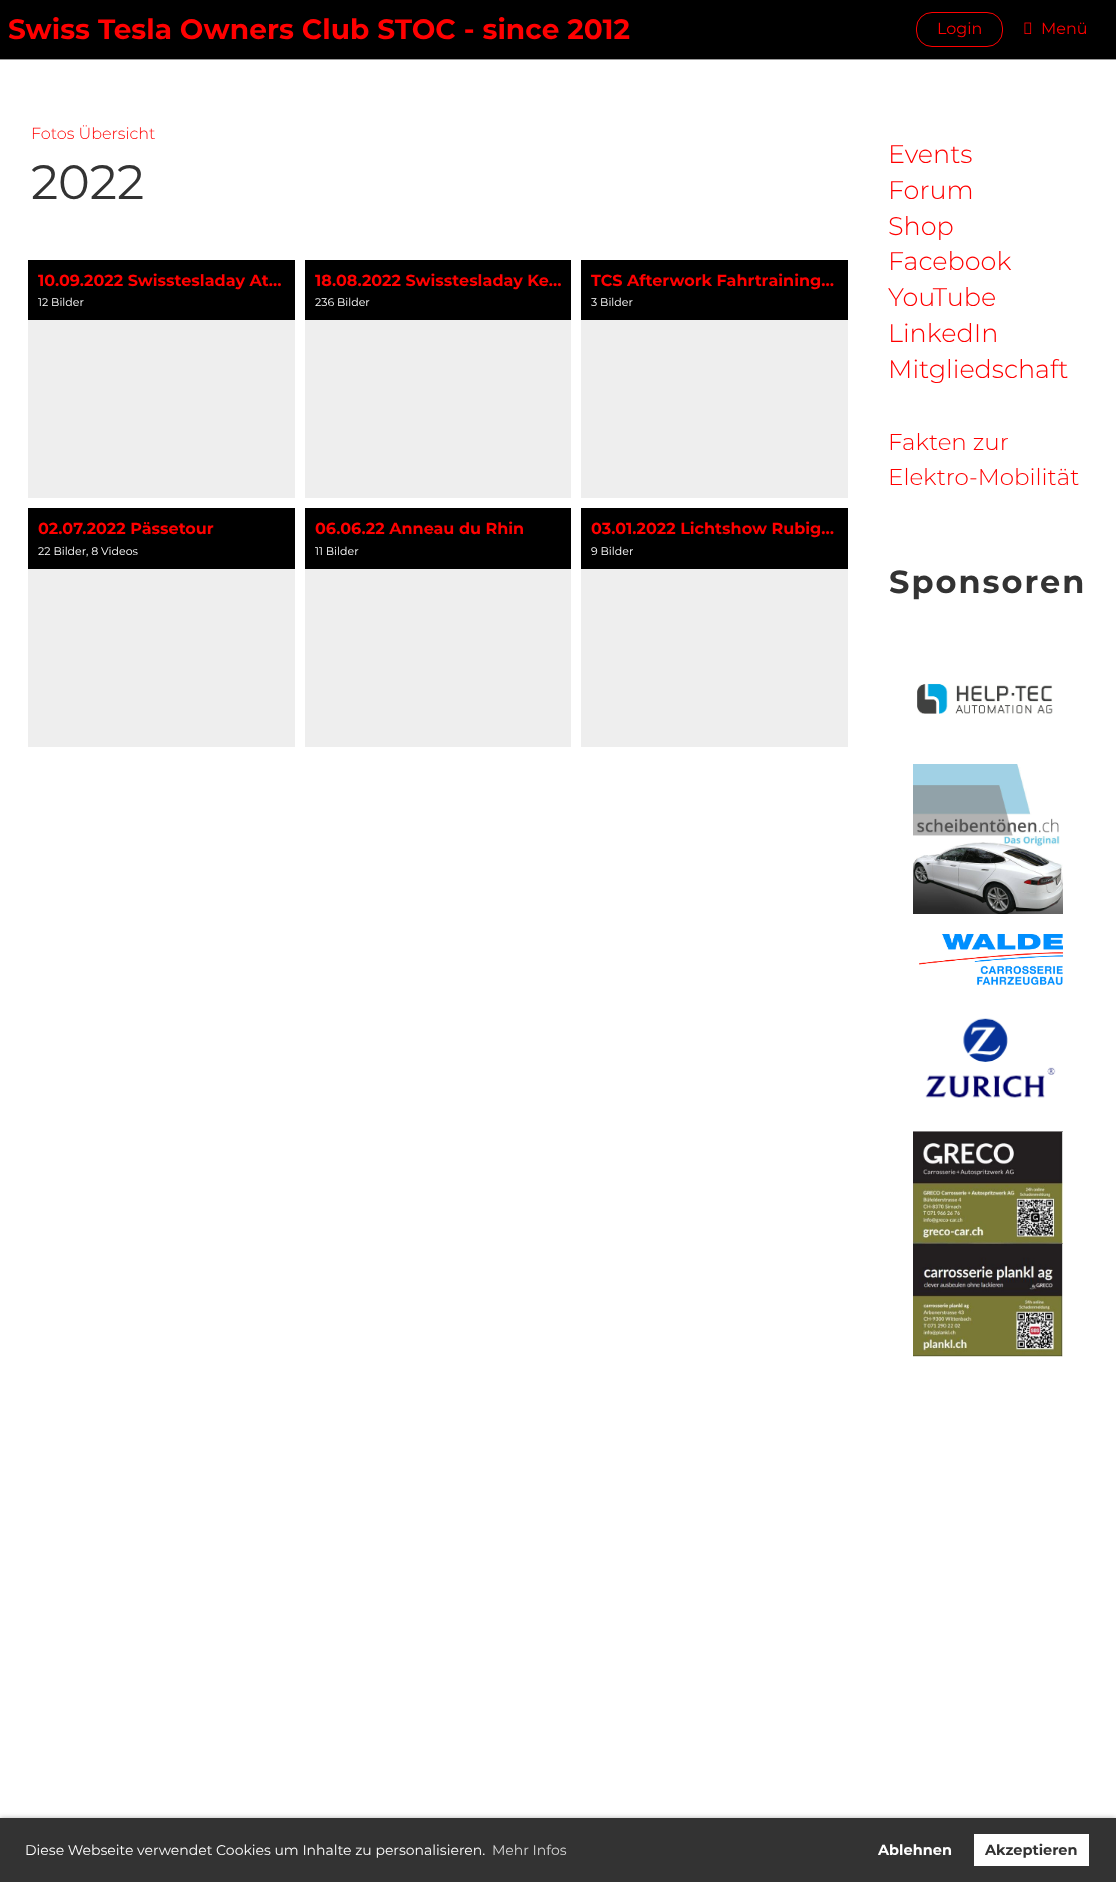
<svg xmlns="http://www.w3.org/2000/svg" width="1116" height="1882">
	<rect width="100%" height="100%" fill="#FFFFFF" />
	<rect x="0" y="0" width="1116" height="59" fill="#000000" />
	<rect x="0" y="59" width="1116" height="1" fill="#999999" />
	<text x="8" y="39" font-family="Montserrat" font-size="28" font-weight="700" fill="#FF0000">Swiss Tesla Owners Club STOC - since 2012</text>
	<rect x="916.5" y="12.5" width="86" height="34" rx="15.5" fill="none" stroke="#FF0000" />
	<text x="937" y="34" font-family="Montserrat" font-size="16" fill="#FF0000">Login</text>
	<image x="1024" y="22" width="8" height="12" href="assets/img1.png" />
	<text x="1041" y="34" font-family="Montserrat" font-size="16" fill="#FF0000">Menü</text>
	<text x="31" y="139" font-family="Montserrat" font-size="16" font-weight="300" fill="#FF0000">Fotos Übersicht</text>
	<text x="31" y="199" font-family="Montserrat" font-size="48" fill="#333333">2022</text>
	<rect x="28" y="320" width="267" height="178" fill="#EEEEEE" />
	<rect x="28" y="260" width="267" height="60" fill="#000000" />
	<text x="38" y="286" font-family="Montserrat" font-size="16" font-weight="700" fill="#FF0000">10.09.2022 Swisstesladay At…</text>
	<text x="38" y="306" font-family="Montserrat" font-size="11" fill="#FFFFFF">12 Bilder</text>
	<rect x="305" y="320" width="266" height="178" fill="#EEEEEE" />
	<rect x="305" y="260" width="266" height="60" fill="#000000" />
	<text x="315" y="286" font-family="Montserrat" font-size="16" font-weight="700" fill="#FF0000">18.08.2022 Swisstesladay Ke…</text>
	<text x="315" y="306" font-family="Montserrat" font-size="11" fill="#FFFFFF">236 Bilder</text>
	<rect x="581" y="320" width="267" height="178" fill="#EEEEEE" />
	<rect x="581" y="260" width="267" height="60" fill="#000000" />
	<text x="591" y="286" font-family="Montserrat" font-size="16" font-weight="700" fill="#FF0000">TCS Afterwork Fahrtraining…</text>
	<text x="591" y="306" font-family="Montserrat" font-size="11" fill="#FFFFFF">3 Bilder</text>
	<rect x="28" y="569" width="267" height="178" fill="#EEEEEE" />
	<rect x="28" y="508" width="267" height="61" fill="#000000" />
	<text x="38" y="534" font-family="Montserrat" font-size="16" font-weight="700" fill="#FF0000">02.07.2022 Pässetour</text>
	<text x="38" y="555" font-family="Montserrat" font-size="11" fill="#FFFFFF">22 Bilder, 8 Videos</text>
	<rect x="305" y="569" width="266" height="178" fill="#EEEEEE" />
	<rect x="305" y="508" width="266" height="61" fill="#000000" />
	<text x="315" y="534" font-family="Montserrat" font-size="16" font-weight="700" fill="#FF0000">06.06.22 Anneau du Rhin</text>
	<text x="315" y="555" font-family="Montserrat" font-size="11" fill="#FFFFFF">11 Bilder</text>
	<rect x="581" y="569" width="267" height="178" fill="#EEEEEE" />
	<rect x="581" y="508" width="267" height="61" fill="#000000" />
	<text x="591" y="534" font-family="Montserrat" font-size="16" font-weight="700" fill="#FF0000">03.01.2022 Lichtshow Rubig…</text>
	<text x="591" y="555" font-family="Montserrat" font-size="11" fill="#FFFFFF">9 Bilder</text>
	<g font-family="Montserrat" font-size="25.5" font-weight="300" fill="#FF0000">
		<text x="888" y="163">Events</text>
		<text x="888" y="199">Forum</text>
		<text x="888" y="235">Shop</text>
		<text x="888" y="270">Facebook</text>
		<text x="888" y="306">YouTube</text>
		<text x="888" y="342">LinkedIn</text>
		<text x="888" y="378">Mitgliedschaft</text>
	</g>
	<g font-family="Montserrat" font-size="23" font-weight="300" fill="#FF0000">
		<text x="888" y="450">Fakten zur</text>
		<text x="888" y="485">Elektro-Mobilität</text>
	</g>
	<text x="889" y="593" font-family="Montserrat" font-size="32" font-weight="700" letter-spacing="2" fill="#333333">Sponsoren</text>
	<image x="917" y="683" width="136" height="31" href="assets/img2.png" />
	<image x="913" y="764" width="150" height="150" href="assets/img3.png" />
	<image x="919" y="934" width="144" height="51" href="assets/img4.png" />
	<image x="925" y="1018" width="131" height="80" href="assets/img5.png" />
	<image x="913" y="1131" width="150" height="226" href="assets/img6.png" />
	<rect x="0" y="1818" width="1116" height="64" fill="#000000" fill-opacity="0.3" filter="blur(2.5px)" />
	<rect x="0" y="1818" width="1116" height="64" fill="#333333" />
	<text x="25" y="1855" font-family="Montserrat" font-size="14" fill="#FFFFFF">Diese Webseite verwendet Cookies um Inhalte zu personalisieren.</text>
	<text x="492" y="1855" font-family="Montserrat" font-size="14" fill="#D6D6D6">Mehr Infos</text>
	<text x="878" y="1855" font-family="Montserrat" font-size="14.5" font-weight="700" fill="#FFFFFF">Ablehnen</text>
	<rect x="974" y="1834" width="115" height="32" fill="#FFFFFF" />
	<text x="985" y="1855" font-family="Montserrat" font-size="14.5" font-weight="700" fill="#333333">Akzeptieren</text>
</svg>
